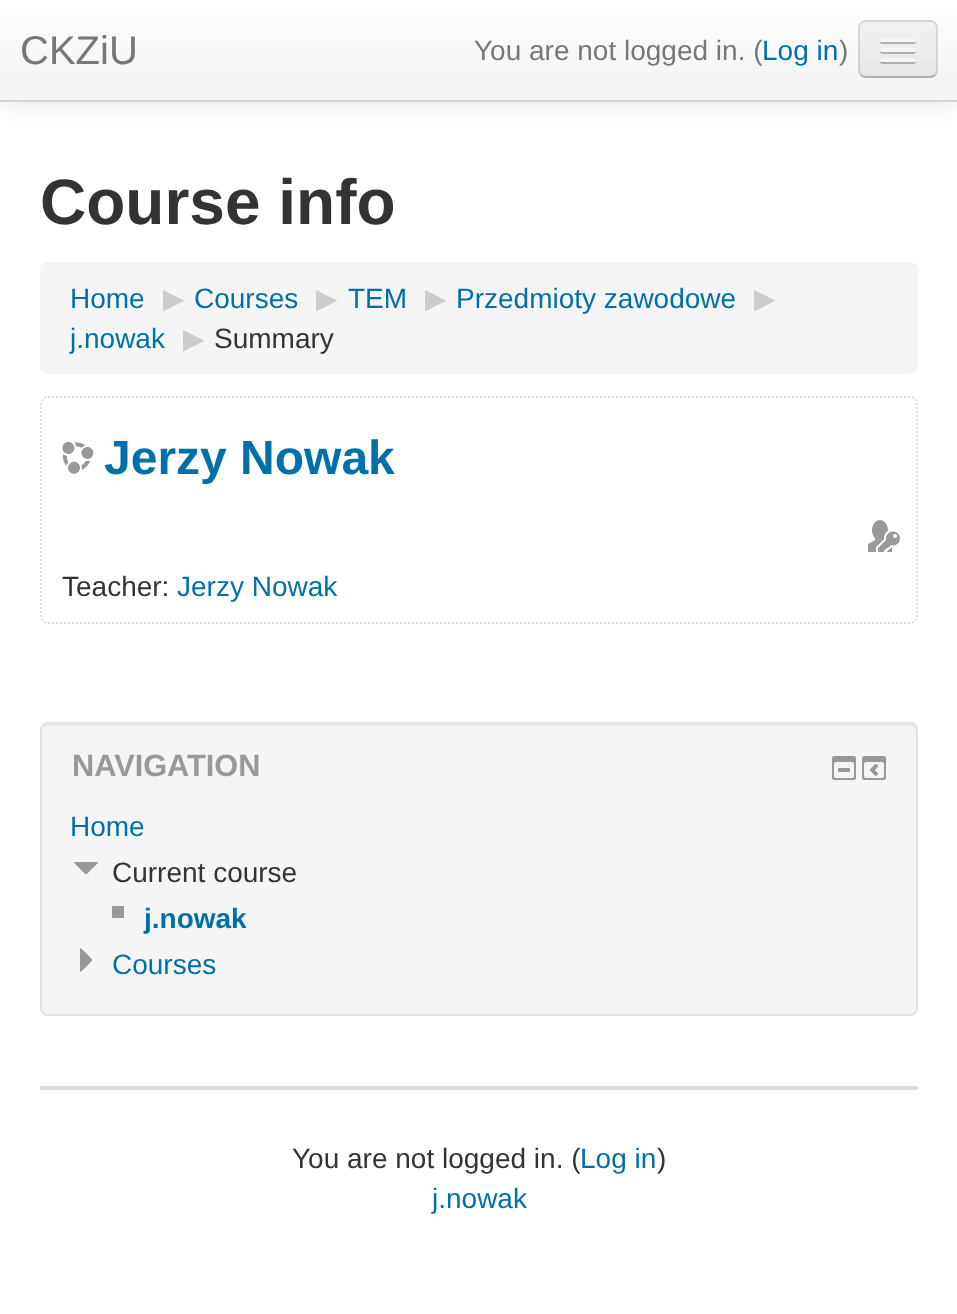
<svg xmlns="http://www.w3.org/2000/svg" width="957" height="1314">
	<defs>
		<linearGradient id="g1" gradientUnits="userSpaceOnUse" x1="479" y1="0" x2="479" y2="100"><stop offset="0" stop-color="#FFFFFF" /><stop offset="1" stop-color="#F2F2F2" /></linearGradient>
		<clipPath id="clip1"><rect x="858" y="20" width="80" height="58" rx="8" /></clipPath>
		<linearGradient id="g2" gradientUnits="userSpaceOnUse" x1="898" y1="22" x2="898" y2="76"><stop offset="0" stop-color="#F2F2F2" /><stop offset="1" stop-color="#E5E5E5" /></linearGradient>
	</defs>
	<rect width="100%" height="100%" fill="#FFFFFF" />
	<rect x="0" y="2" width="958" height="102" fill="#000000" fill-opacity="0.1" filter="blur(10px)" />
	<rect x="0" y="0" width="957" height="100" fill="url(#g1)" />
	<rect x="0" y="100" width="957" height="2" fill="#D4D4D4" />
	<text x="20" y="64" font-family="Liberation Sans" font-size="40" fill="#777777">CKZiU</text>
	<text x="474" y="60" font-family="Liberation Sans" font-size="28" fill="#777777">You are not logged in. (</text>
	<text x="762" y="60" font-family="Liberation Sans" font-size="28" fill="#0070A8">Log in</text>
	<text x="839" y="60" font-family="Liberation Sans" font-size="28" fill="#777777">)</text>
	<rect x="858" y="20" width="80" height="58" rx="8" fill="#EDEDED" />
	<g clip-path="url(#clip1)">
		<rect x="858" y="22" width="80" height="54" fill="url(#g2)" />
	</g>
	<path d="M935 75C933.5 76.5 932 77 930 77H866C864 77 862.5 76.5 861 75" fill="none" stroke="#000000" stroke-opacity="0.25" stroke-width="2" />
	<path d="M861 75C859.5 73.5 859 72 859 70V28C859 26 859.5 24.5 861 23C862.5 21.5 864 21 866 21H930C932 21 933.5 21.5 935 23C936.5 24.5 937 26 937 28V70C937 72 936.5 73.5 935 75" fill="none" stroke="#000000" stroke-opacity="0.1" stroke-width="2" />
	<path d="M880.5 41C878 45 887 44 887.5 44H908.5C909 44 918 45 915.5 41C915.5 41.5 914.5 42 914 42H882C881.5 42 880.5 41.5 880.5 41Z" fill="#B2B2B2" />
	<rect x="880" y="38" width="36" height="4" rx="2" fill="#F5F5F5" />
	<path d="M880.5 51C878 55 887 54 887.5 54H908.5C909 54 918 55 915.5 51C915.5 51.5 914.5 52 914 52H882C881.5 52 880.5 51.5 880.5 51Z" fill="#B0B0B0" />
	<rect x="880" y="48" width="36" height="4" rx="2" fill="#F5F5F5" />
	<path d="M880.5 61C878 65 887 64 887.5 64H908.5C909 64 918 65 915.5 61C915.5 61.5 914.5 62 914 62H882C881.5 62 880.5 61.5 880.5 61Z" fill="#AEAEAE" />
	<rect x="880" y="58" width="36" height="4" rx="2" fill="#F5F5F5" />
	<text x="40" y="224" font-family="Liberation Sans" font-size="64" font-weight="700" fill="#333333">Course info</text>
	<rect x="40" y="262" width="878" height="112" rx="8" fill="#F5F5F5" />
	<text x="70" y="308" font-family="Liberation Sans" font-size="28" fill="#0070A8">Home</text>
	<text x="163" y="308" font-family="DejaVu Sans" font-size="28" fill="#CCCCCC">▶</text>
	<text x="194" y="308" font-family="Liberation Sans" font-size="28" fill="#0070A8">Courses</text>
	<text x="316" y="308" font-family="DejaVu Sans" font-size="28" fill="#CCCCCC">▶</text>
	<text x="348" y="308" font-family="Liberation Sans" font-size="28" fill="#0070A8">TEM</text>
	<text x="425" y="308" font-family="DejaVu Sans" font-size="28" fill="#CCCCCC">▶</text>
	<text x="456" y="308" font-family="Liberation Sans" font-size="28" fill="#0070A8">Przedmioty zawodowe</text>
	<text x="754" y="308" font-family="DejaVu Sans" font-size="28" fill="#CCCCCC">▶</text>
	<text x="70" y="348" font-family="Liberation Sans" font-size="28" fill="#0070A8">j.nowak</text>
	<text x="183" y="348" font-family="DejaVu Sans" font-size="28" fill="#CCCCCC">▶</text>
	<text x="214" y="348" font-family="Liberation Sans" font-size="28" fill="#333333">Summary</text>
	<path d="M48 397H910C914 397 917 400 917 404V616C917 620 914 623 910 623H48C44 623 41 620 41 616V404C41 400 44 397 48 397Z" fill="none" stroke="#DDDDDD" stroke-width="2" stroke-dasharray="2 2" />
	<image x="62" y="442" width="32" height="32" href="assets/img1.png" />
	<text x="104" y="474" font-family="Liberation Sans" font-size="48" font-weight="700" fill="#0070A8">Jerzy Nowak</text>
	<image x="868" y="520" width="32" height="32" href="assets/img2.png" />
	<text x="62" y="596" font-family="Liberation Sans" font-size="28" fill="#333333">Teacher:</text>
	<text x="177" y="596" font-family="Liberation Sans" font-size="28" fill="#0070A8">Jerzy Nowak</text>
	<rect x="40" y="722" width="878" height="294" rx="8" fill="#F5F5F5" />
	<path d="M48 726H910C913 726 916 729 916 732V730C916 727 913 724 910 724H48C45 724 42 727 42 730V732C42 729 45 726 48 726Z" fill="#E9E9E9" />
	<rect x="41" y="723" width="876" height="292" rx="7" fill="none" stroke="#E3E3E3" stroke-width="2" />
	<text x="72" y="776" font-family="Liberation Sans" font-size="30.75" font-weight="700" fill="#999999">NAVIGATION</text>
	<image x="832" y="756" width="24" height="24" href="assets/img3.png" />
	<image x="862" y="756" width="24" height="24" href="assets/img4.png" />
	<text x="70" y="836" font-family="Liberation Sans" font-size="28" fill="#0070A8">Home</text>
	<image x="74" y="862" width="24" height="12" href="assets/img5.png" />
	<text x="112" y="882" font-family="Liberation Sans" font-size="28" fill="#333333">Current course</text>
	<rect x="112" y="906" width="12" height="12" fill="#999999" />
	<text x="144" y="928" font-family="Liberation Sans" font-size="28" font-weight="700" fill="#0070A8">j.nowak</text>
	<image x="80" y="948" width="12" height="24" href="assets/img6.png" />
	<text x="112" y="974" font-family="Liberation Sans" font-size="28" fill="#0070A8">Courses</text>
	<rect x="40" y="1086" width="878" height="4" fill="#DDDDDD" />
	<text x="292" y="1168" font-family="Liberation Sans" font-size="28" fill="#333333">You are not logged in. (</text>
	<text x="580" y="1168" font-family="Liberation Sans" font-size="28" fill="#0070A8">Log in</text>
	<text x="657" y="1168" font-family="Liberation Sans" font-size="28" fill="#333333">)</text>
	<text x="432" y="1208" font-family="Liberation Sans" font-size="28" fill="#0070A8">j.nowak</text>
</svg>
